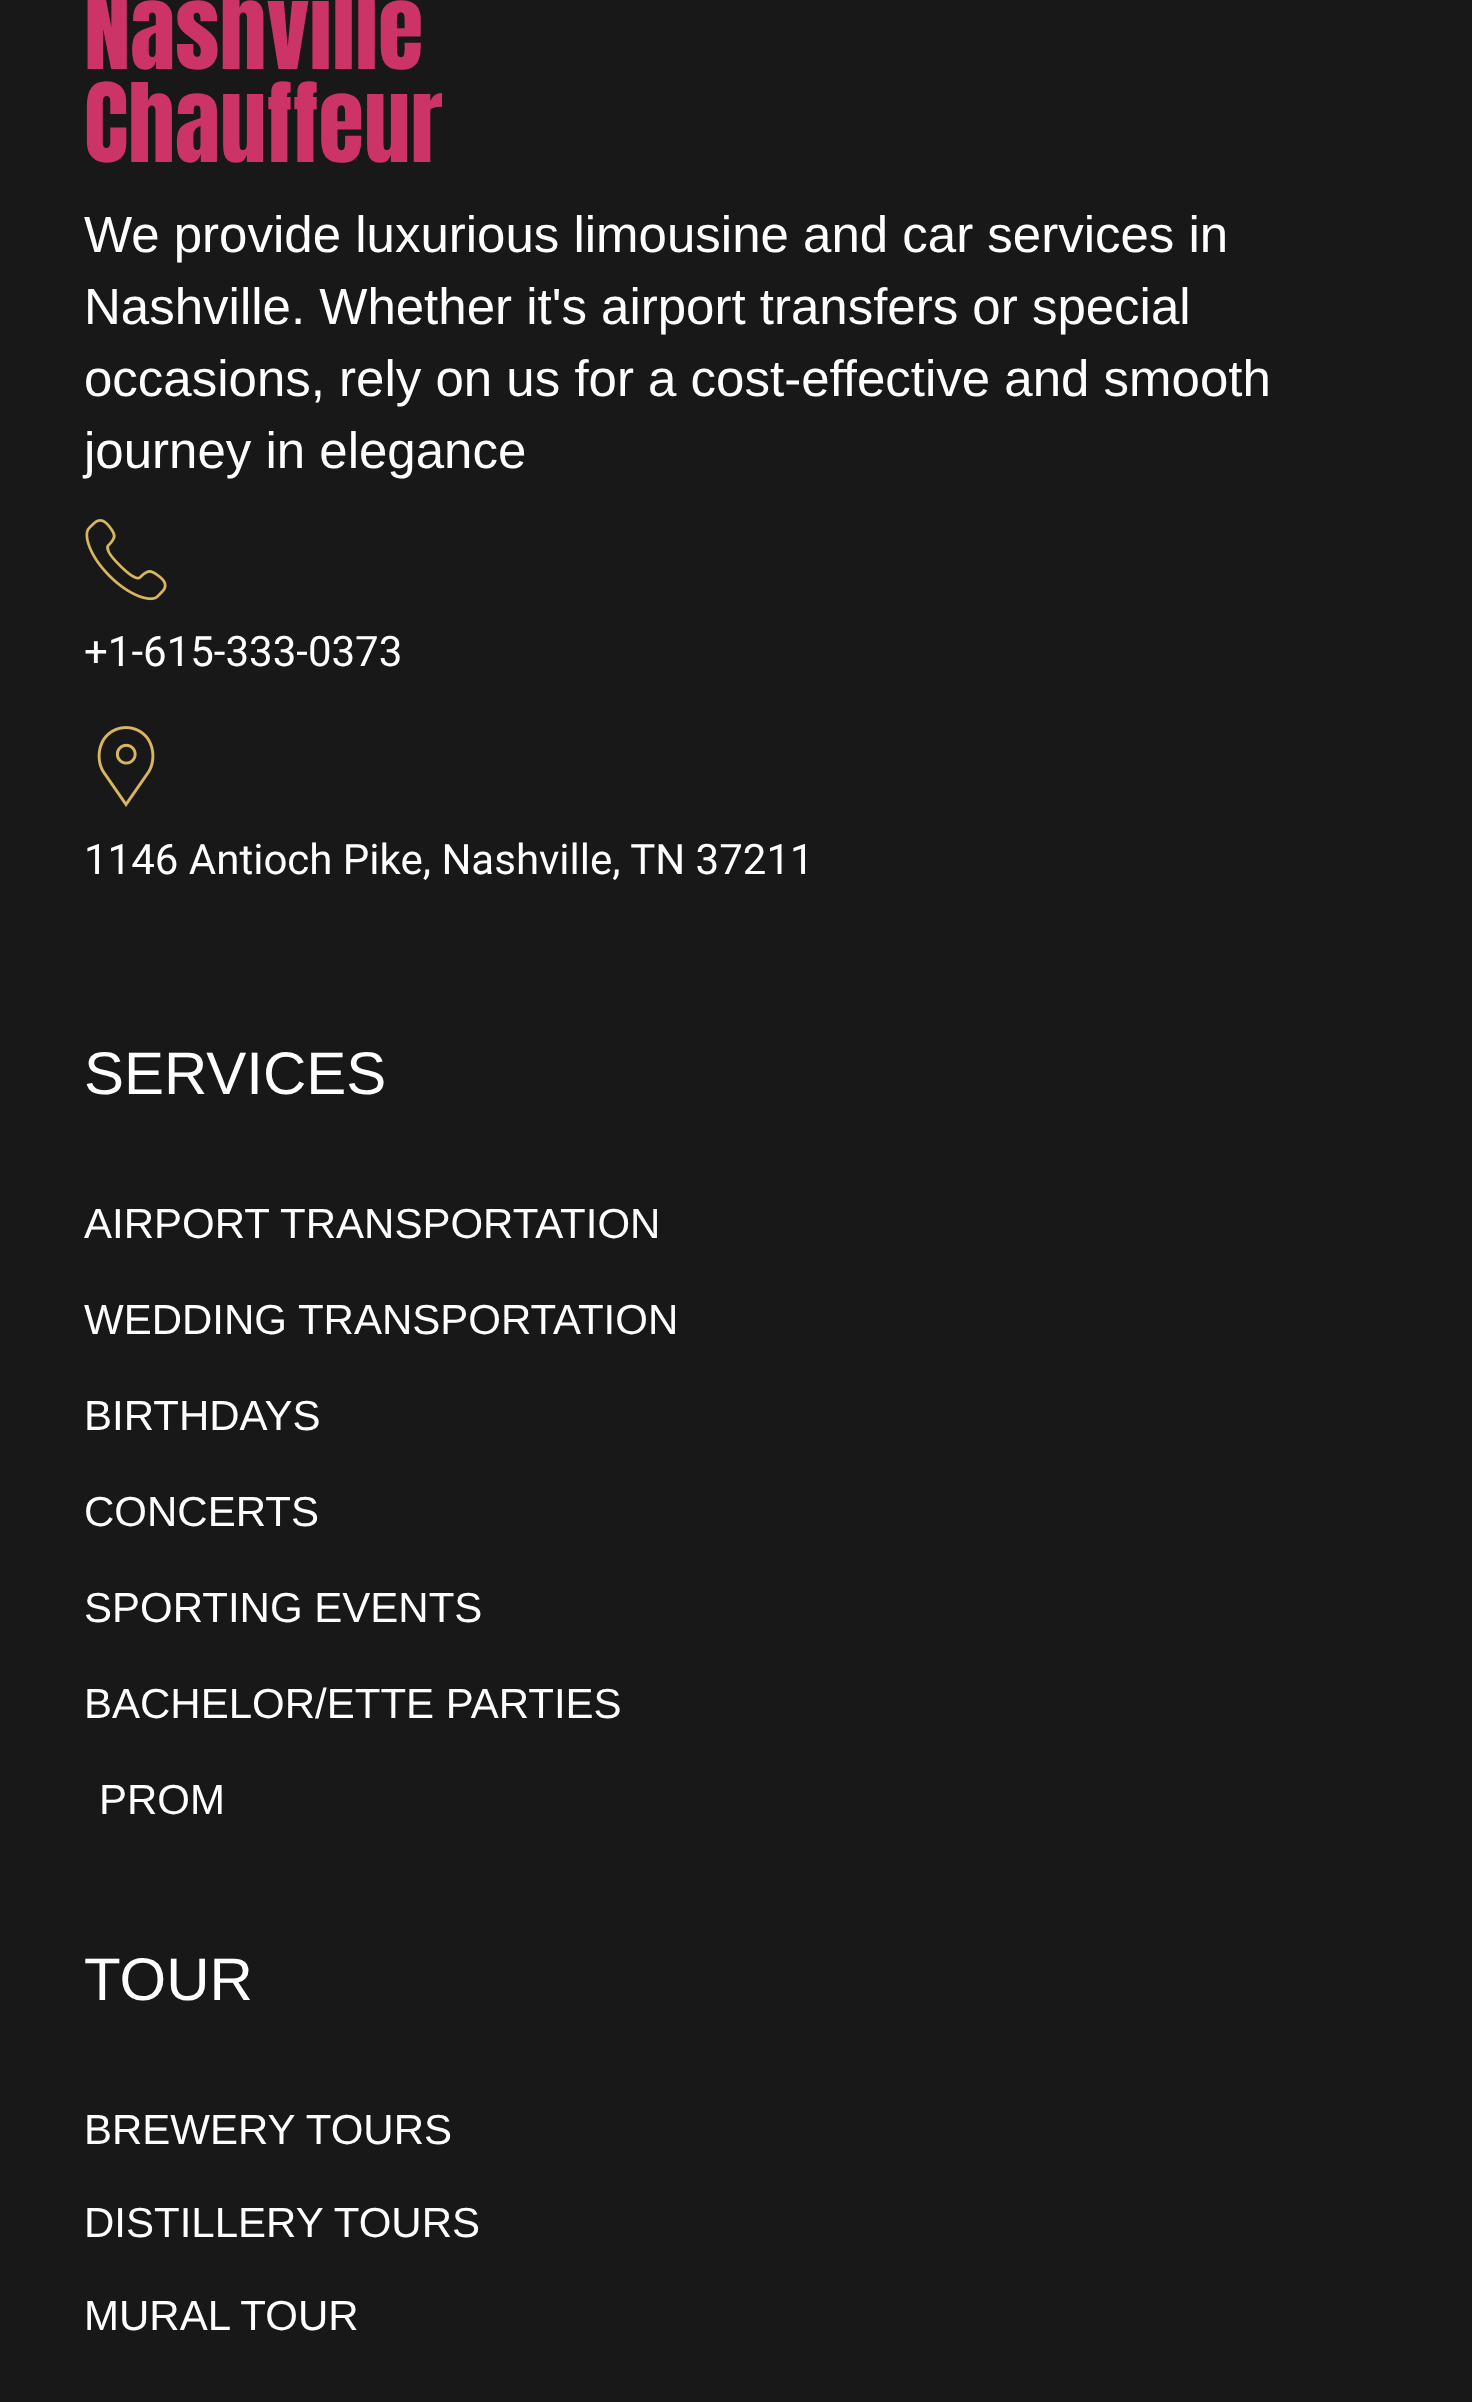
<svg xmlns="http://www.w3.org/2000/svg" width="1472" height="2402">
	<rect width="100%" height="100%" fill="#181818" />
	<g font-family="Anton" font-size="93" fill="#CC3366">
		<text x="84" y="69">Nashville</text>
		<text x="84" y="162">Chauffeur</text>
	</g>
	<g font-family="Liberation Sans" font-size="51" fill="#FFFFFF">
		<text x="84" y="252">We provide luxurious limousine and car services in</text>
		<text x="84" y="324">Nashville. Whether it's airport transfers or special</text>
		<text x="84" y="396">occasions, rely on us for a cost-effective and smooth</text>
		<text x="84" y="468">journey in elegance</text>
	</g>
	<image x="85" y="519" width="82" height="82" href="assets/img1.png" />
	<text x="84" y="666" font-family="Roboto" font-size="42" fill="#FFFFFF">+1-615-333-0373</text>
	<image x="97" y="726" width="58" height="81" href="assets/img2.png" />
	<text x="84" y="874" font-family="Roboto" font-size="42" fill="#FFFFFF">1146 Antioch Pike, Nashville, TN 37211</text>
	<text x="84" y="1094" font-family="Liberation Sans" font-size="60" fill="#FFFFFF">SERVICES</text>
	<g font-family="Liberation Sans" font-size="42" fill="#FFFFFF">
		<text x="84" y="1238">AIRPORT TRANSPORTATION</text>
		<text x="84" y="1334">WEDDING TRANSPORTATION</text>
		<text x="84" y="1430">BIRTHDAYS</text>
		<text x="84" y="1526">CONCERTS</text>
		<text x="84" y="1622">SPORTING EVENTS</text>
		<text x="84" y="1718">BACHELOR/ETTE PARTIES</text>
		<text x="99" y="1814">PROM</text>
	</g>
	<text x="84" y="2000" font-family="Liberation Sans" font-size="60" fill="#FFFFFF">TOUR</text>
	<g font-family="Liberation Sans" font-size="42" fill="#FFFFFF">
		<text x="84" y="2144">BREWERY TOURS</text>
		<text x="84" y="2237">DISTILLERY TOURS</text>
		<text x="84" y="2330">MURAL TOUR</text>
	</g>
</svg>
